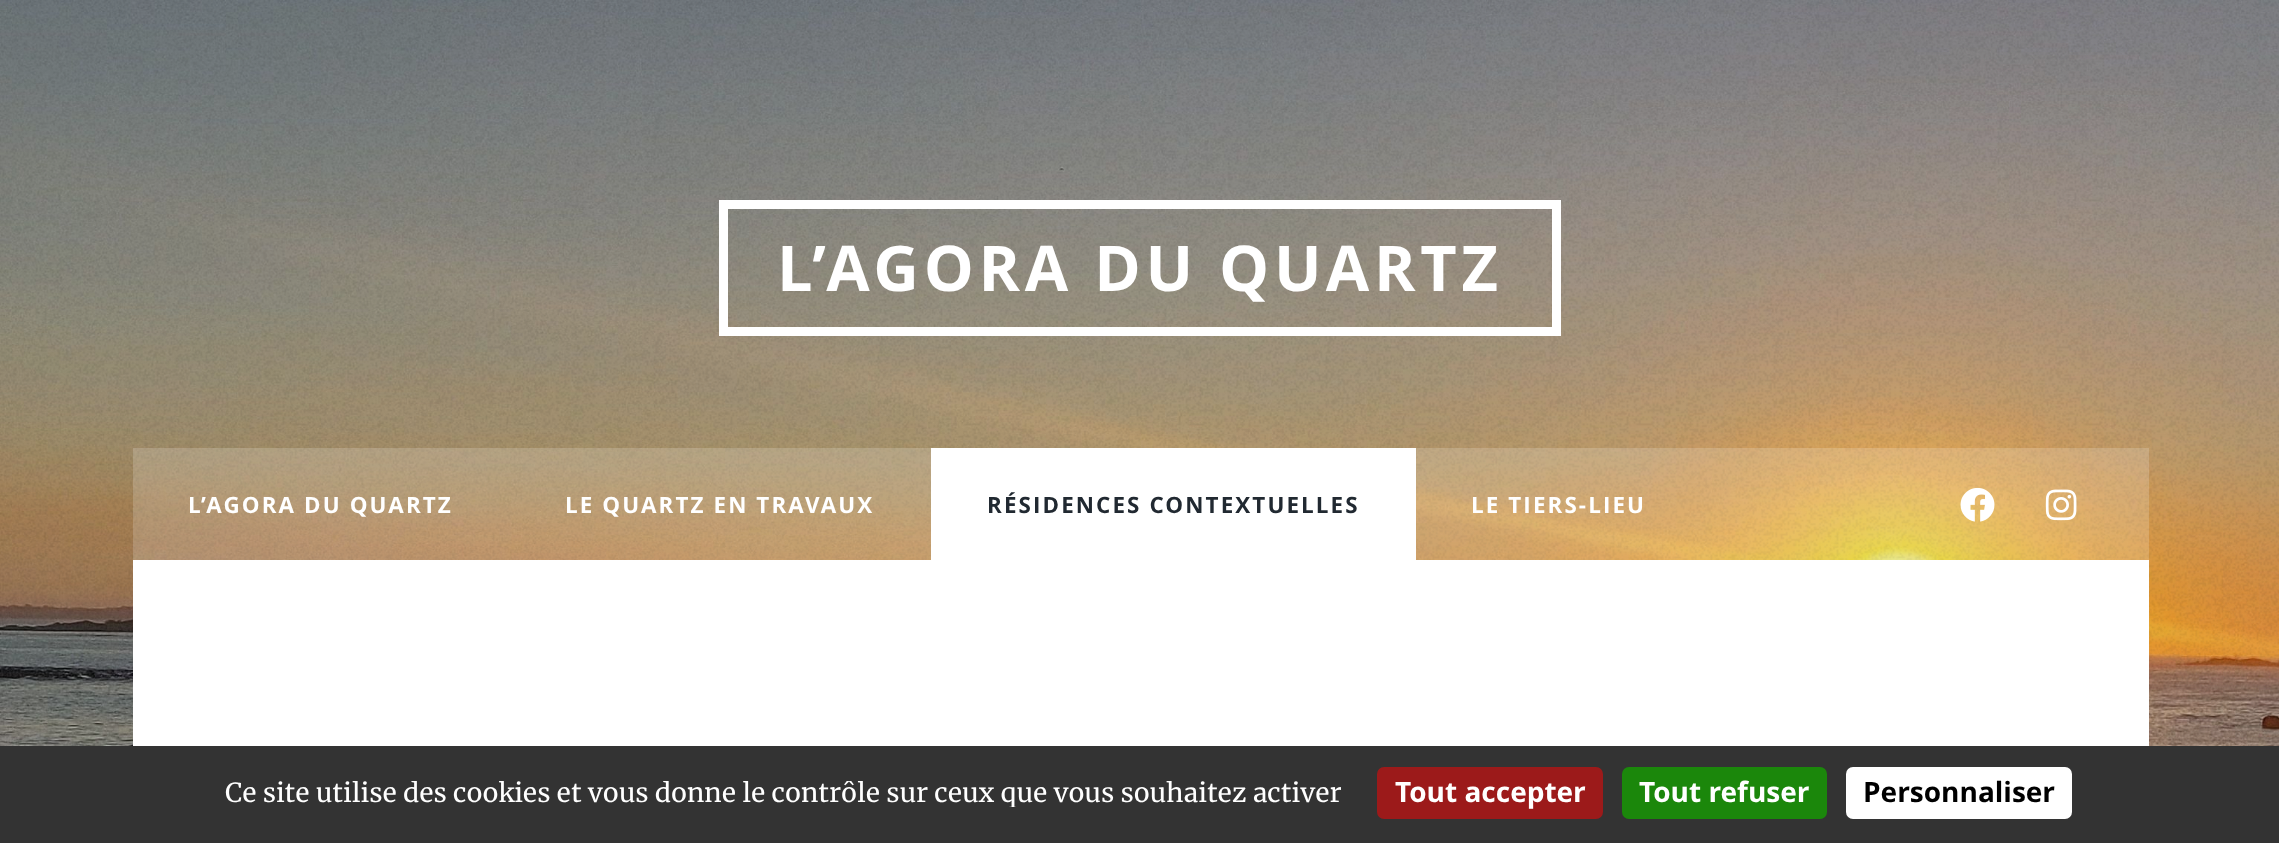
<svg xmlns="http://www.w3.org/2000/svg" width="2279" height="843">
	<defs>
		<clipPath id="clip1"><rect x="208" y="781" width="1152" height="26" /></clipPath>
	</defs>
	<rect width="100%" height="100%" fill="#FFFFFF" />
	<image x="0" y="0" width="2279" height="746" href="assets/img1.png" />
	<rect x="723.5" y="204.5" width="833" height="127" fill="none" stroke="#FFFFFF" stroke-width="9" />
	<text x="777" y="291" font-family="Open Sans" font-size="63" font-weight="700" letter-spacing="4.75" fill="#FFFFFF">L’AGORA DU QUARTZ</text>
	<rect x="133" y="448" width="2016" height="112" fill="#FFFFFF" fill-opacity="0.18" />
	<g font-family="Open Sans" font-size="22.4" font-weight="700" letter-spacing="2.1" fill="#FFFFFF">
		<text x="188" y="513">L’AGORA DU QUARTZ</text>
		<text x="565" y="513">LE QUARTZ EN TRAVAUX</text>
	</g>
	<rect x="931" y="448" width="485" height="112" fill="#FFFFFF" />
	<text x="987" y="513" font-family="Open Sans" font-size="22.4" font-weight="700" letter-spacing="2.1" fill="#212931">RÉSIDENCES CONTEXTUELLES</text>
	<text x="1471" y="513" font-family="Open Sans" font-size="22.4" font-weight="700" letter-spacing="2.1" fill="#FFFFFF">LE TIERS-LIEU</text>
	<image x="1960" y="487" width="35" height="35" href="assets/img2.png" />
	<image x="2045" y="489" width="32" height="32" href="assets/img3.png" />
	<rect x="133" y="560" width="2016" height="186" fill="#FFFFFF" />
	<rect x="0" y="746" width="2279" height="97" fill="#333333" />
	<g clip-path="url(#clip1)">
		<text x="225" y="802" font-family="Merriweather" font-size="26.25" fill="#FFFFFF">Ce site utilise des cookies et vous donne le contrôle sur ceux que vous souhaitez activer</text>
	</g>
	<rect x="1377" y="767" width="226" height="52" rx="7" fill="#9C1A1A" />
	<text x="1395" y="802" font-family="Open Sans" font-size="28" font-weight="700" fill="#FFFFFF">Tout accepter</text>
	<rect x="1622" y="767" width="205" height="52" rx="7" fill="#1B870B" />
	<text x="1639" y="802" font-family="Open Sans" font-size="28" font-weight="700" fill="#FFFFFF">Tout refuser</text>
	<rect x="1846" y="767" width="226" height="52" rx="7" fill="#FFFFFF" />
	<text x="1863" y="802" font-family="Open Sans" font-size="28" font-weight="700" fill="#000000">Personnaliser</text>
</svg>
